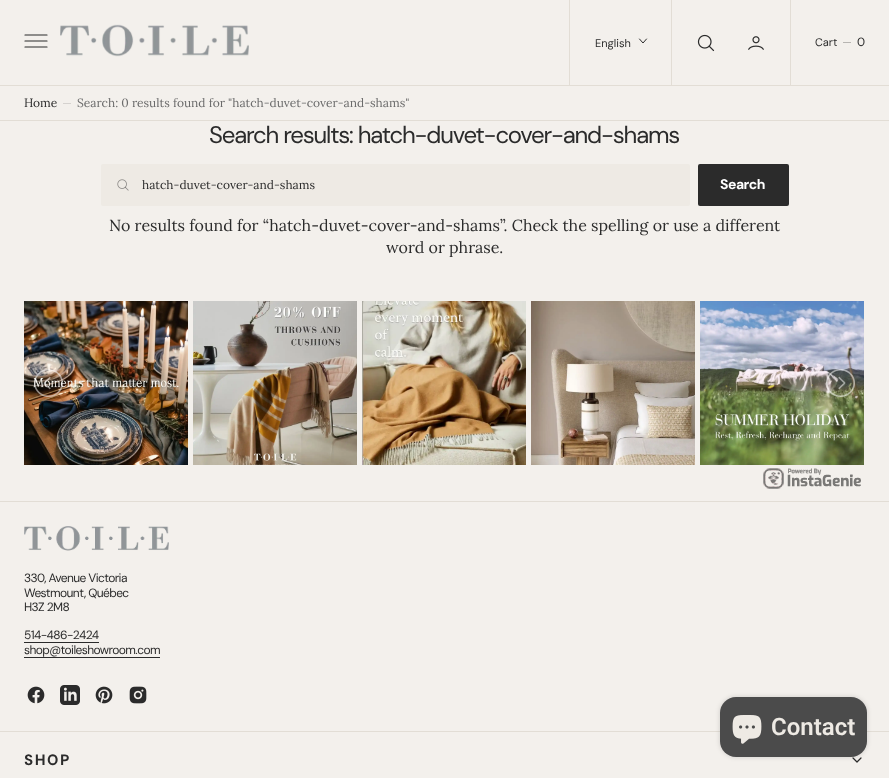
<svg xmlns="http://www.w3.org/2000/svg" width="889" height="778">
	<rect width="100%" height="100%" fill="#F3F0EC" />
	<rect x="0" y="85" width="889" height="1" fill="#E2DDD5" />
	<path d="M25 35H47M25 41H47M25 47H47" fill="none" stroke="#2B2B2B" stroke-width="1.2" stroke-linecap="round" />
	<image x="60" y="24" width="189" height="33" href="assets/img1.png" />
	<rect x="569" y="0" width="1" height="85" fill="#E2DDD5" />
	<text x="595" y="47" font-family="'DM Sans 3'" font-size="11" fill="#2B2B2B">English</text>
	<path d="M646.5 39L643 43L639.5 39" fill="none" stroke="#2B2B2B" stroke-linecap="round" stroke-linejoin="round" />
	<rect x="671" y="0" width="1" height="85" fill="#E2DDD5" />
	<image x="697" y="34" width="18" height="18" href="assets/img2.png" />
	<image x="748" y="36" width="16" height="14" href="assets/img3.png" />
	<rect x="790" y="0" width="1" height="85" fill="#E2DDD5" />
	<text x="815" y="46" font-family="'DM Sans 3'" font-size="11" fill="#2B2B2B">Cart</text>
	<rect x="843" y="42" width="8" height="1" fill="#B7B5B2" />
	<text x="857" y="46" font-family="'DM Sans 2'" font-size="12" fill="#2B2B2B">0</text>
	<rect x="0" y="120" width="889" height="1" fill="#E2DDD5" />
	<text x="24" y="107" font-family="Lora" font-size="12" fill="#2B2B2B">Home</text>
	<rect x="63" y="103" width="8" height="1" fill="#D5D2CF" />
	<text x="77" y="107" font-family="Lora" font-size="12" fill="#6B6B6B">Search: 0 results found for "hatch-duvet-cover-and-shams"</text>
	<text x="209" y="143" font-family="DM Sans" font-size="24" letter-spacing="-1.2" fill="#2B2B2B">Search results: hatch-duvet-cover-and-shams</text>
	<rect x="101" y="164" width="589" height="42" rx="2" fill="#EEEAE4" />
	<image x="117" y="179" width="12" height="12" href="assets/img4.png" />
	<text x="142" y="189" font-family="Lora" font-size="12" fill="#2B2B2B">hatch-duvet-cover-and-shams</text>
	<rect x="698" y="164" width="91" height="42" rx="2" fill="#2B2B2B" />
	<text x="720" y="189" font-family="DM Sans" font-size="14" font-weight="700" letter-spacing="-0.5" fill="#FFFFFF">Search</text>
	<g font-family="Lora" font-size="16" fill="#2B2B2B">
		<text x="109" y="231">No results found for “hatch-duvet-cover-and-shams”. Check the spelling or use a different</text>
		<text x="386" y="253">word or phrase.</text>
	</g>
	<image x="24" y="301" width="164" height="164" href="assets/img5.png" />
	<image x="193" y="301" width="164" height="164" href="assets/img6.png" />
	<image x="362" y="301" width="164" height="164" href="assets/img7.png" />
	<image x="531" y="301" width="164" height="164" href="assets/img8.png" />
	<image x="700" y="301" width="164" height="164" href="assets/img9.png" />
	<image x="34" y="369" width="29" height="28" href="assets/img10.png" />
	<image x="826" y="369" width="29" height="28" href="assets/img11.png" />
	<image x="763" y="468" width="98" height="21" href="assets/img12.png" />
	<rect x="0" y="501" width="889" height="1" fill="#E2DDD5" />
	<image x="24" y="526" width="145" height="25" href="assets/img13.png" />
	<g font-family="'DM Sans 2'" font-size="12" letter-spacing="-0.6" fill="#2B2B2B">
		<text x="24" y="582">330, Avenue Victoria</text>
		<text x="24" y="597">Westmount, Québec</text>
		<text x="24" y="611">H3Z 2M8</text>
		<text x="24" y="639">514-486-2424</text>
	</g>
	<rect x="24" y="642" width="75" height="1" fill="#2B2B2B" />
	<text x="24" y="654" font-family="'DM Sans 2'" font-size="12" letter-spacing="-0.6" fill="#2B2B2B">shop@toileshowroom.com</text>
	<rect x="24" y="657" width="136" height="1" fill="#2B2B2B" />
	<image x="27" y="686" width="18" height="18" href="assets/img14.png" />
	<image x="60" y="685" width="20" height="20" href="assets/img15.png" />
	<image x="95" y="686" width="18" height="18" href="assets/img16.png" />
	<image x="129" y="686" width="18" height="18" href="assets/img17.png" />
	<rect x="0" y="731" width="889" height="1" fill="#E2DDD5" />
	<text x="24" y="765" font-family="'DM Sans 2'" font-size="15" font-weight="700" letter-spacing="1.5" fill="#2B2B2B">SHOP</text>
	<path d="M861 758L857 762L853 758" fill="none" stroke="#2B2B2B" stroke-width="1.2" stroke-linecap="round" stroke-linejoin="round" />
	<rect x="720" y="697" width="147" height="60" rx="16" fill="#000000" fill-opacity="0.15" filter="blur(2.5px)" />
	<rect x="720" y="697" width="147" height="60" rx="16" fill="#4B4B4B" />
	<image x="732" y="715" width="30" height="29" href="assets/img18.png" />
	<text x="771" y="735" font-family="Roboto" font-size="24" font-weight="600" fill="#EEEAE4">Contact</text>
</svg>
